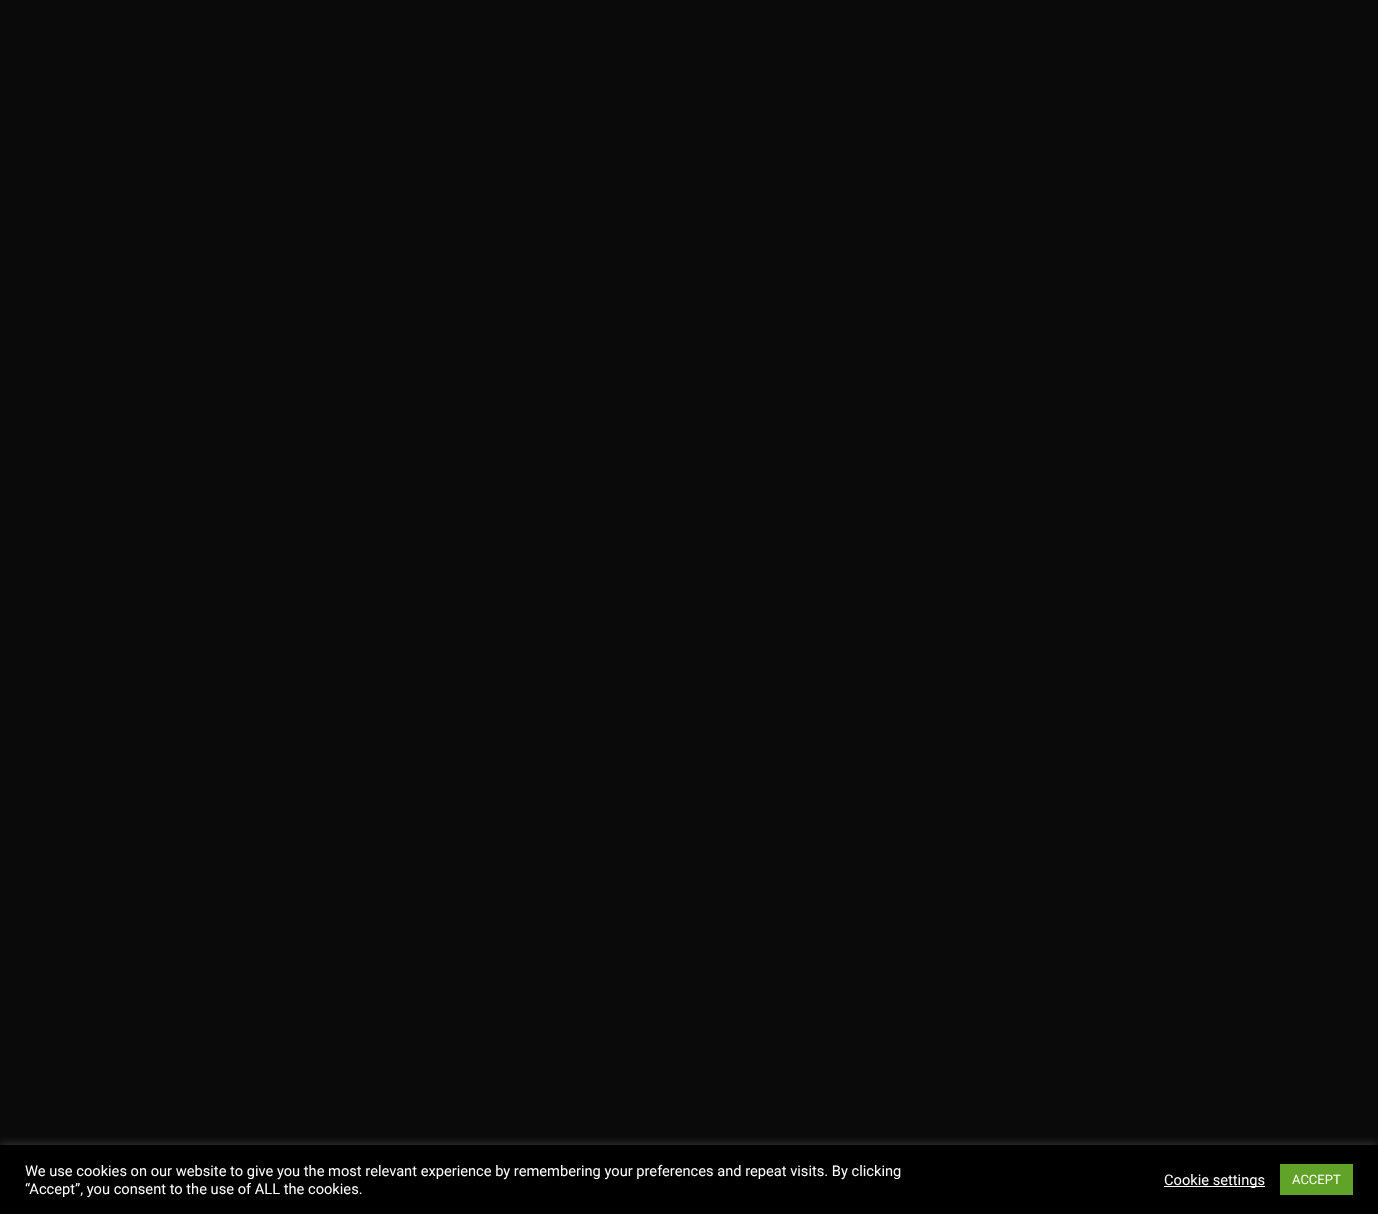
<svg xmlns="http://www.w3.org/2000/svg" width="1378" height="1214">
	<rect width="100%" height="100%" fill="#0A0A0A" />
	<rect x="0" y="1144" width="1378" height="69" fill="#ACABAB" fill-opacity="0.3" filter="blur(5px)" />
	<rect x="0" y="1145" width="1378" height="69" fill="#000000" />
	<g font-family="Roboto" font-size="14.67" fill="#FFFFFF">
		<text x="25" y="1176">We use cookies on our website to give you the most relevant experience by remembering your preferences and repeat visits. By clicking</text>
		<text x="25" y="1194">“Accept”, you consent to the use of ALL the cookies.</text>
	</g>
	<rect x="1164" y="1186" width="101" height="1" fill="#FFFFFF" />
	<text x="1164" y="1185" font-family="Roboto" font-size="14.67" fill="#FFFFFF">Cookie settings</text>
	<rect x="1280" y="1164" width="73" height="31" fill="#61A229" />
	<text x="1292" y="1184" font-family="Roboto" font-size="13" fill="#FFFFFF">ACCEPT</text>
</svg>
